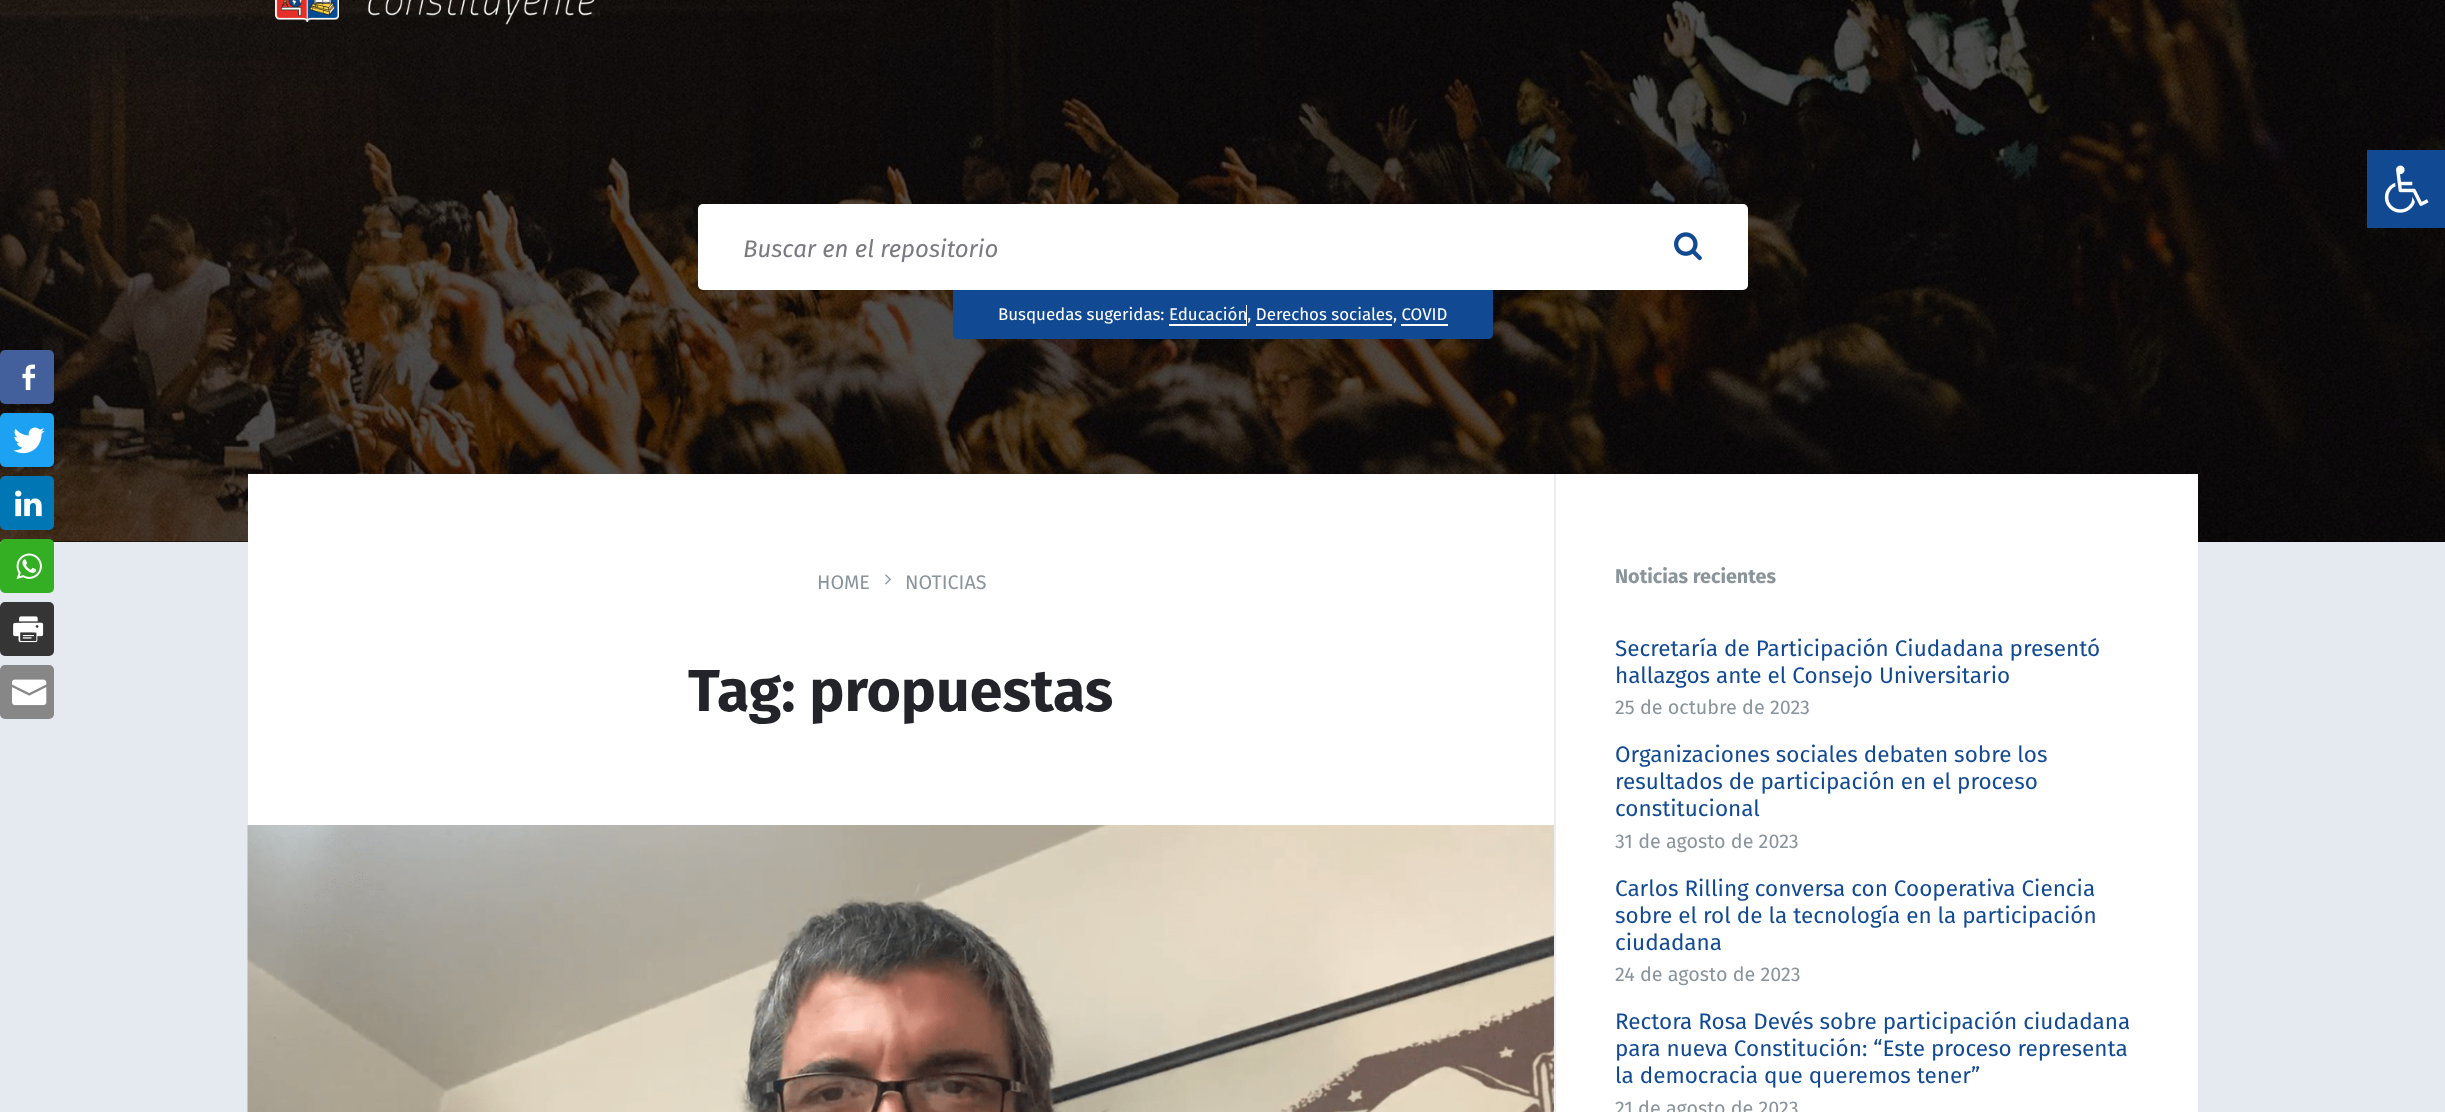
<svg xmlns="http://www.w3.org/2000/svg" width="2445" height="1112">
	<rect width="100%" height="100%" fill="#E5E9F0" />
	<rect x="0" y="541" width="2445" height="1" fill="#000000" />
	<image x="0" y="0" width="2445" height="542" href="assets/img8.png" />
	<rect x="2367" y="150" width="78" height="78" fill="#114A93" />
	<image x="2384" y="165" width="45" height="48" href="assets/img1.png" />
	<rect x="0" y="350" width="54" height="54" rx="5" fill="#43609C" />
	<image x="22" y="364" width="14" height="27" href="assets/img2.png" />
	<rect x="0" y="413" width="54" height="54" rx="5" fill="#1DA1F2" />
	<image x="13" y="427" width="32" height="27" href="assets/img3.png" />
	<rect x="0" y="476" width="54" height="54" rx="5" fill="#0077B5" />
	<image x="15" y="490" width="27" height="27" href="assets/img4.png" />
	<rect x="0" y="539" width="54" height="54" rx="5" fill="#34AF23" />
	<image x="16" y="553" width="26" height="27" href="assets/img5.png" />
	<rect x="0" y="602" width="54" height="54" rx="5" fill="#353535" />
	<image x="13" y="616" width="31" height="27" href="assets/img6.png" />
	<rect x="0" y="665" width="54" height="54" rx="5" fill="#878787" />
	<image x="12" y="679" width="35" height="27" href="assets/img7.png" />
	<image x="275" y="0" width="320" height="25" href="assets/img9.png" />
	<rect x="698" y="204" width="1050" height="86" rx="5" fill="#FFFFFF" />
	<text x="743" y="257" font-family="Fira Sans" font-size="24" font-style="italic" fill="#797982">Buscar en el repositorio</text>
	<image x="1674" y="232" width="28" height="29" href="assets/img10.png" />
	<path d="M953 290H1493V334C1493 337 1491 339 1488 339H958C955 339 953 337 953 334Z" fill="#114A93" />
	<text x="998" y="320" font-family="Fira Sans" font-size="16.9" fill="#FFFFFF">Busquedas sugeridas:</text>
	<path d="M1169 324V326H1247V305H1246V324Z" fill="#FFFFFF" />
	<text x="1169" y="320" font-family="Fira Sans" font-size="16.9" fill="#FFFFFF">Educación, Derechos sociales, COVID</text>
	<rect x="1256" y="324" width="136" height="2" fill="#FFFFFF" />
	<path d="M1401 324V326H1448V305V324Z" fill="#FFFFFF" />
	<rect x="248" y="474" width="1950" height="638" fill="#FFFFFF" />
	<text x="817" y="589" font-family="Fira Sans" font-size="19.75" fill="#8A949B">HOME</text>
	<image x="885" y="574" width="6" height="11" href="assets/img11.png" />
	<text x="905" y="589" font-family="Fira Sans" font-size="19.75" fill="#8A949B">NOTICIAS</text>
	<text x="688" y="711" font-family="Fira Sans" font-size="59" font-weight="700" fill="#232429">Tag: propuestas</text>
	<image x="247" y="825" width="1307" height="287" href="assets/img12.png" />
	<rect x="1554" y="474" width="2" height="638" fill="#EAEDF3" />
	<text x="1615" y="583" font-family="Fira Sans" font-size="19.75" font-weight="700" fill="#8A949B">Noticias recientes</text>
	<g font-family="Fira Sans" font-size="22.5" fill="#114A93">
		<text x="1615" y="656">Secretaría de Participación Ciudadana presentó</text>
		<text x="1615" y="683">hallazgos ante el Consejo Universitario</text>
	</g>
	<text x="1615" y="714" font-family="Fira Sans" font-size="19.75" fill="#8A949B">25 de octubre de 2023</text>
	<g font-family="Fira Sans" font-size="22.5" fill="#114A93">
		<text x="1615" y="762">Organizaciones sociales debaten sobre los</text>
		<text x="1615" y="789">resultados de participación en el proceso</text>
		<text x="1615" y="816">constitucional</text>
	</g>
	<text x="1615" y="848" font-family="Fira Sans" font-size="19.75" fill="#8A949B">31 de agosto de 2023</text>
	<g font-family="Fira Sans" font-size="22.5" fill="#114A93">
		<text x="1615" y="896">Carlos Rilling conversa con Cooperativa Ciencia</text>
		<text x="1615" y="923">sobre el rol de la tecnología en la participación</text>
		<text x="1615" y="950">ciudadana</text>
	</g>
	<text x="1615" y="981" font-family="Fira Sans" font-size="19.75" fill="#8A949B">24 de agosto de 2023</text>
	<g font-family="Fira Sans" font-size="22.5" fill="#114A93">
		<text x="1615" y="1029">Rectora Rosa Devés sobre participación ciudadana</text>
		<text x="1615" y="1056">para nueva Constitución: “Este proceso representa</text>
		<text x="1615" y="1083">la democracia que queremos tener”</text>
	</g>
	<text x="1615" y="1115" font-family="Fira Sans" font-size="19.75" fill="#8A949B">21 de agosto de 2023</text>
</svg>
